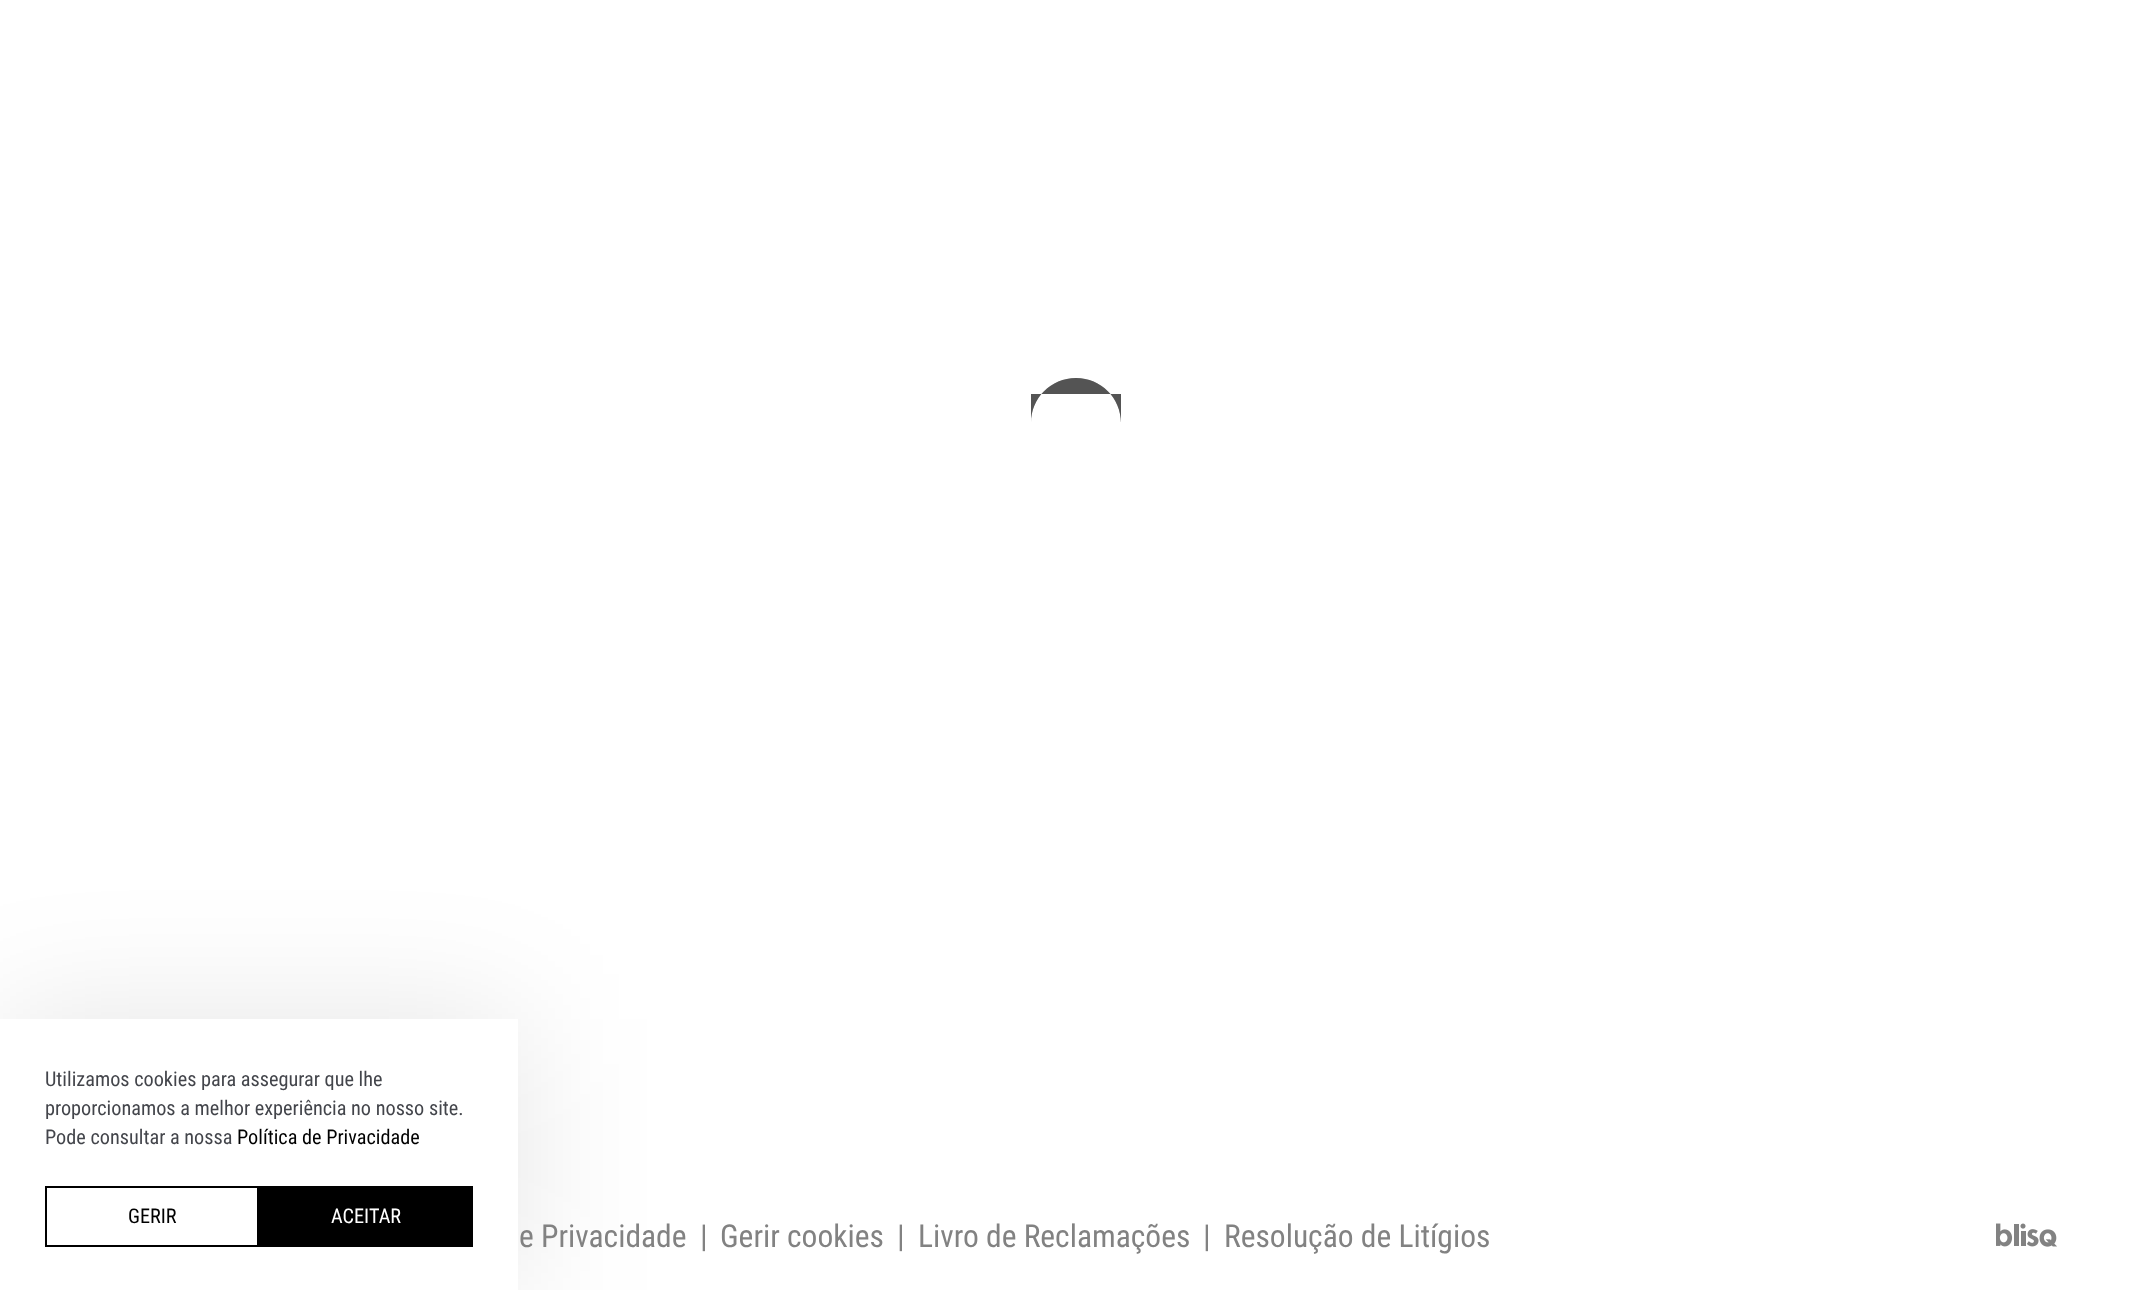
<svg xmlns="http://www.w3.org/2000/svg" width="2150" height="1290">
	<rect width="100%" height="100%" fill="#FFFFFF" />
	<path d="M1076 378C1101 378 1121 398 1121 423V394H1031V423C1031 398 1051 378 1076 378Z" fill="#858585" />
	<path d="M1076 378C1101 378 1121 398 1121 423V394H1031V423C1031 398 1051 378 1076 378Z" fill="#333333" fill-opacity="0.6" />
	<rect x="0" y="1019" width="518" height="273" fill="#000000" fill-opacity="0.1" filter="blur(67.5px)" />
	<rect x="0" y="1019" width="518" height="271" fill="#FFFFFF" />
	<g font-family="Roboto Condensed" font-size="20.25" fill="#43454B">
		<text x="45" y="1086">Utilizamos cookies para assegurar que lhe</text>
		<text x="45" y="1115">proporcionamos a melhor experiência no nosso site.</text>
		<text x="45" y="1144">Pode consultar a nossa</text>
	</g>
	<text x="237" y="1144" font-family="Roboto Condensed" font-size="20.25" fill="#000000">Política de Privacidade</text>
	<rect x="46" y="1187" width="212" height="59" fill="none" stroke="#000000" stroke-width="2" />
	<text x="128" y="1223" font-family="Roboto Condensed" font-size="20.25" fill="#000000">GERIR</text>
	<rect x="259" y="1186" width="214" height="61" fill="#000000" />
	<text x="331" y="1223" font-family="Roboto Condensed" font-size="20.25" fill="#FFFFFF">ACEITAR</text>
	<g font-family="Roboto Condensed" font-size="31.5" fill="#828282">
		<text x="519" y="1247">e Privacidade</text>
		<text x="700" y="1247">|</text>
		<text x="720" y="1247">Gerir cookies</text>
		<text x="897" y="1247">|</text>
		<text x="918" y="1247">Livro de Reclamações</text>
		<text x="1203" y="1247">|</text>
		<text x="1224" y="1247">Resolução de Litígios</text>
	</g>
	<image x="1996" y="1223" width="61" height="24" href="assets/img1.png" />
</svg>
